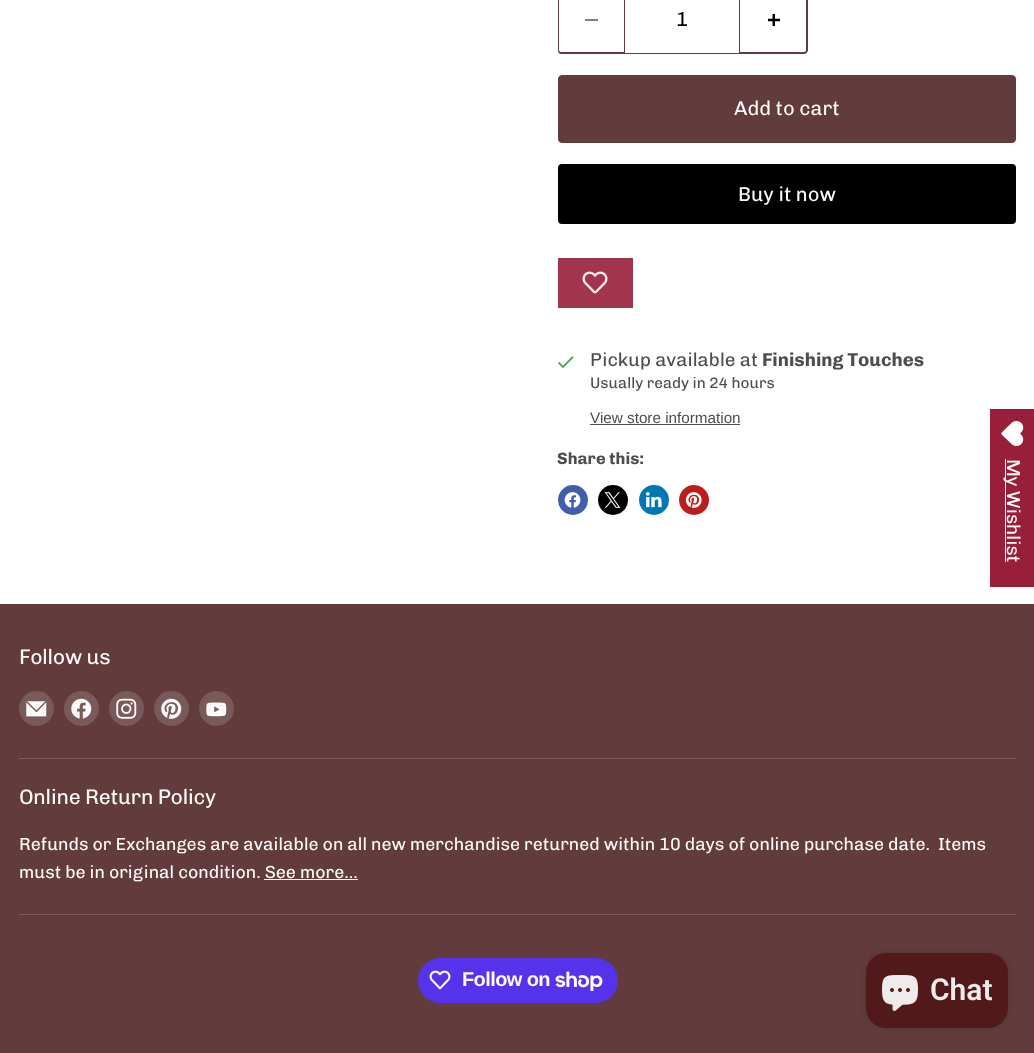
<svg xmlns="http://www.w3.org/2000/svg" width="1034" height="1053">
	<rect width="100%" height="100%" fill="#FFFFFF" />
	<path d="M561-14H624V54H561C559 54 558 52 558 50V-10C558-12 559-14 561-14ZM561-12H624V52H561C560 52 559 51 559 50V-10C559-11 560-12 561-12Z" fill="#623C3C" fill-rule="evenodd" />
	<rect x="585" y="19" width="13" height="2" fill="#808080" />
	<rect x="624.5" y="-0.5" width="115" height="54" fill="none" stroke="#623C3C" />
	<text x="676" y="26" font-family="Chivo" font-size="20" fill="#000000">1</text>
	<path d="M740-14H804C806-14 808-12 808-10V50C808 52 806 54 804 54H740ZM740-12H804C805-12 806-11 806-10V50C806 51 805 52 804 52H740Z" fill="#623C3C" fill-rule="evenodd" />
	<image x="768" y="14" width="12" height="12" href="assets/img1.png" />
	<rect x="558.5" y="75.5" width="457" height="67" rx="3.5" fill="#623C3C" stroke="#623C3C" />
	<text x="734" y="115" font-family="Chivo" font-size="20" fill="#FAFAFA">Add to cart</text>
	<rect x="558" y="164" width="458" height="60" rx="4" fill="#000000" />
	<text x="738" y="201" font-family="Chivo" font-size="20" fill="#FAFAFA">Buy it now</text>
	<rect x="558" y="258" width="75" height="50" fill="#A2354E" />
	<image x="582" y="271" width="26" height="23" href="assets/img2.png" />
	<image x="558" y="356" width="16" height="13" href="assets/img3.png" />
	<text x="590" y="366" font-family="Chivo" font-size="18.75" fill="#4D4D4D">Pickup available at</text>
	<text x="762" y="366" font-family="Chivo" font-size="18.75" font-weight="700" fill="#4D4D4D">Finishing Touches</text>
	<text x="590" y="388" font-family="Chivo" font-size="15.25" fill="#4D4D4D">Usually ready in 24 hours</text>
	<text x="590" y="423" font-family="Liberation Sans" font-size="15.25" fill="#4D4D4D">View store information</text>
	<rect x="590" y="424" width="150" height="1" fill="#4D4D4D" />
	<text x="557" y="464" font-family="Chivo" font-size="16.5" font-weight="700" fill="#4D4D4D">Share this:</text>
	<circle cx="573" cy="500" r="15" fill="#425DAB" />
	<image x="564" y="492" width="17" height="16" href="assets/img4.png" />
	<circle cx="613" cy="500" r="15" fill="#000000" />
	<image x="604" y="492" width="17" height="16" href="assets/img5.png" />
	<circle cx="654" cy="500" r="15" fill="#0077B5" />
	<image x="645" y="492" width="17" height="16" href="assets/img6.png" />
	<circle cx="694" cy="500" r="15" fill="#BD1C1C" />
	<image x="685" y="492" width="17" height="16" href="assets/img7.png" />
	<rect x="990" y="409" width="44" height="178" fill="#981E3A" />
	<image x="1001" y="421" width="23" height="25" href="assets/img8.png" />
	<rect x="1005" y="459" width="1" height="103" fill="#FFFFFF" />
	<text x="1007" y="459" transform="rotate(90 1007 459)" font-family="Chivo" font-size="18.75" fill="#FAFAFA">My Wishlist</text>
	<rect x="0" y="604" width="1034" height="449" fill="#623C3C" />
	<rect x="19" y="758" width="997" height="1" fill="#795959" />
	<text x="19" y="664" font-family="Chivo" font-size="21" letter-spacing="-0.25" fill="#FAFAFA">Follow us</text>
	<circle cx="36.5" cy="708.5" r="17.5" fill="#795959" />
	<image x="26" y="701" width="21" height="16" href="assets/img9.png" />
	<circle cx="81.5" cy="708.5" r="17.5" fill="#795959" />
	<image x="71" y="698" width="21" height="21" href="assets/img10.png" />
	<circle cx="126.5" cy="708.5" r="17.5" fill="#795959" />
	<image x="116" y="698" width="21" height="21" href="assets/img11.png" />
	<circle cx="171.5" cy="708.5" r="17.5" fill="#795959" />
	<image x="161" y="698" width="21" height="21" href="assets/img12.png" />
	<circle cx="216.5" cy="708.5" r="17.5" fill="#795959" />
	<image x="206" y="702" width="21" height="15" href="assets/img13.png" />
	<rect x="19" y="914" width="997" height="1" fill="#795959" />
	<text x="19" y="804" font-family="Chivo" font-size="21" letter-spacing="-0.25" fill="#FAFAFA">Online Return Policy</text>
	<g font-family="Chivo" font-size="17.58" fill="#FAFAFA">
		<text x="19" y="850" xml:space="preserve">Refunds or Exchanges are available on all new merchandise returned within 10 days of online purchase date.  Items</text>
		<text x="19" y="878">must be in original condition. See more...</text>
	</g>
	<rect x="264" y="879" width="94" height="1" fill="#FAFAFA" />
	<rect x="418" y="958" width="200" height="45" rx="22.5" fill="#5433EB" />
	<image x="429" y="970" width="22" height="20" href="assets/img14.png" />
	<text x="462" y="986" font-family="Liberation Sans" font-size="20" font-weight="700" letter-spacing="-0.6" fill="#FAFAFA">Follow on</text>
	<image x="555" y="971" width="48" height="20" href="assets/img15.png" />
	<rect x="866" y="953" width="142" height="75" rx="20" fill="#000000" fill-opacity="0.15" filter="blur(3px)" />
	<rect x="866" y="953" width="142" height="75" rx="20" fill="#511919" />
	<image x="882" y="975" width="36" height="36" href="assets/img16.png" />
	<text x="930" y="1000" font-family="Roboto" font-size="30" font-weight="600" fill="#F0EAEA">Chat</text>
</svg>
